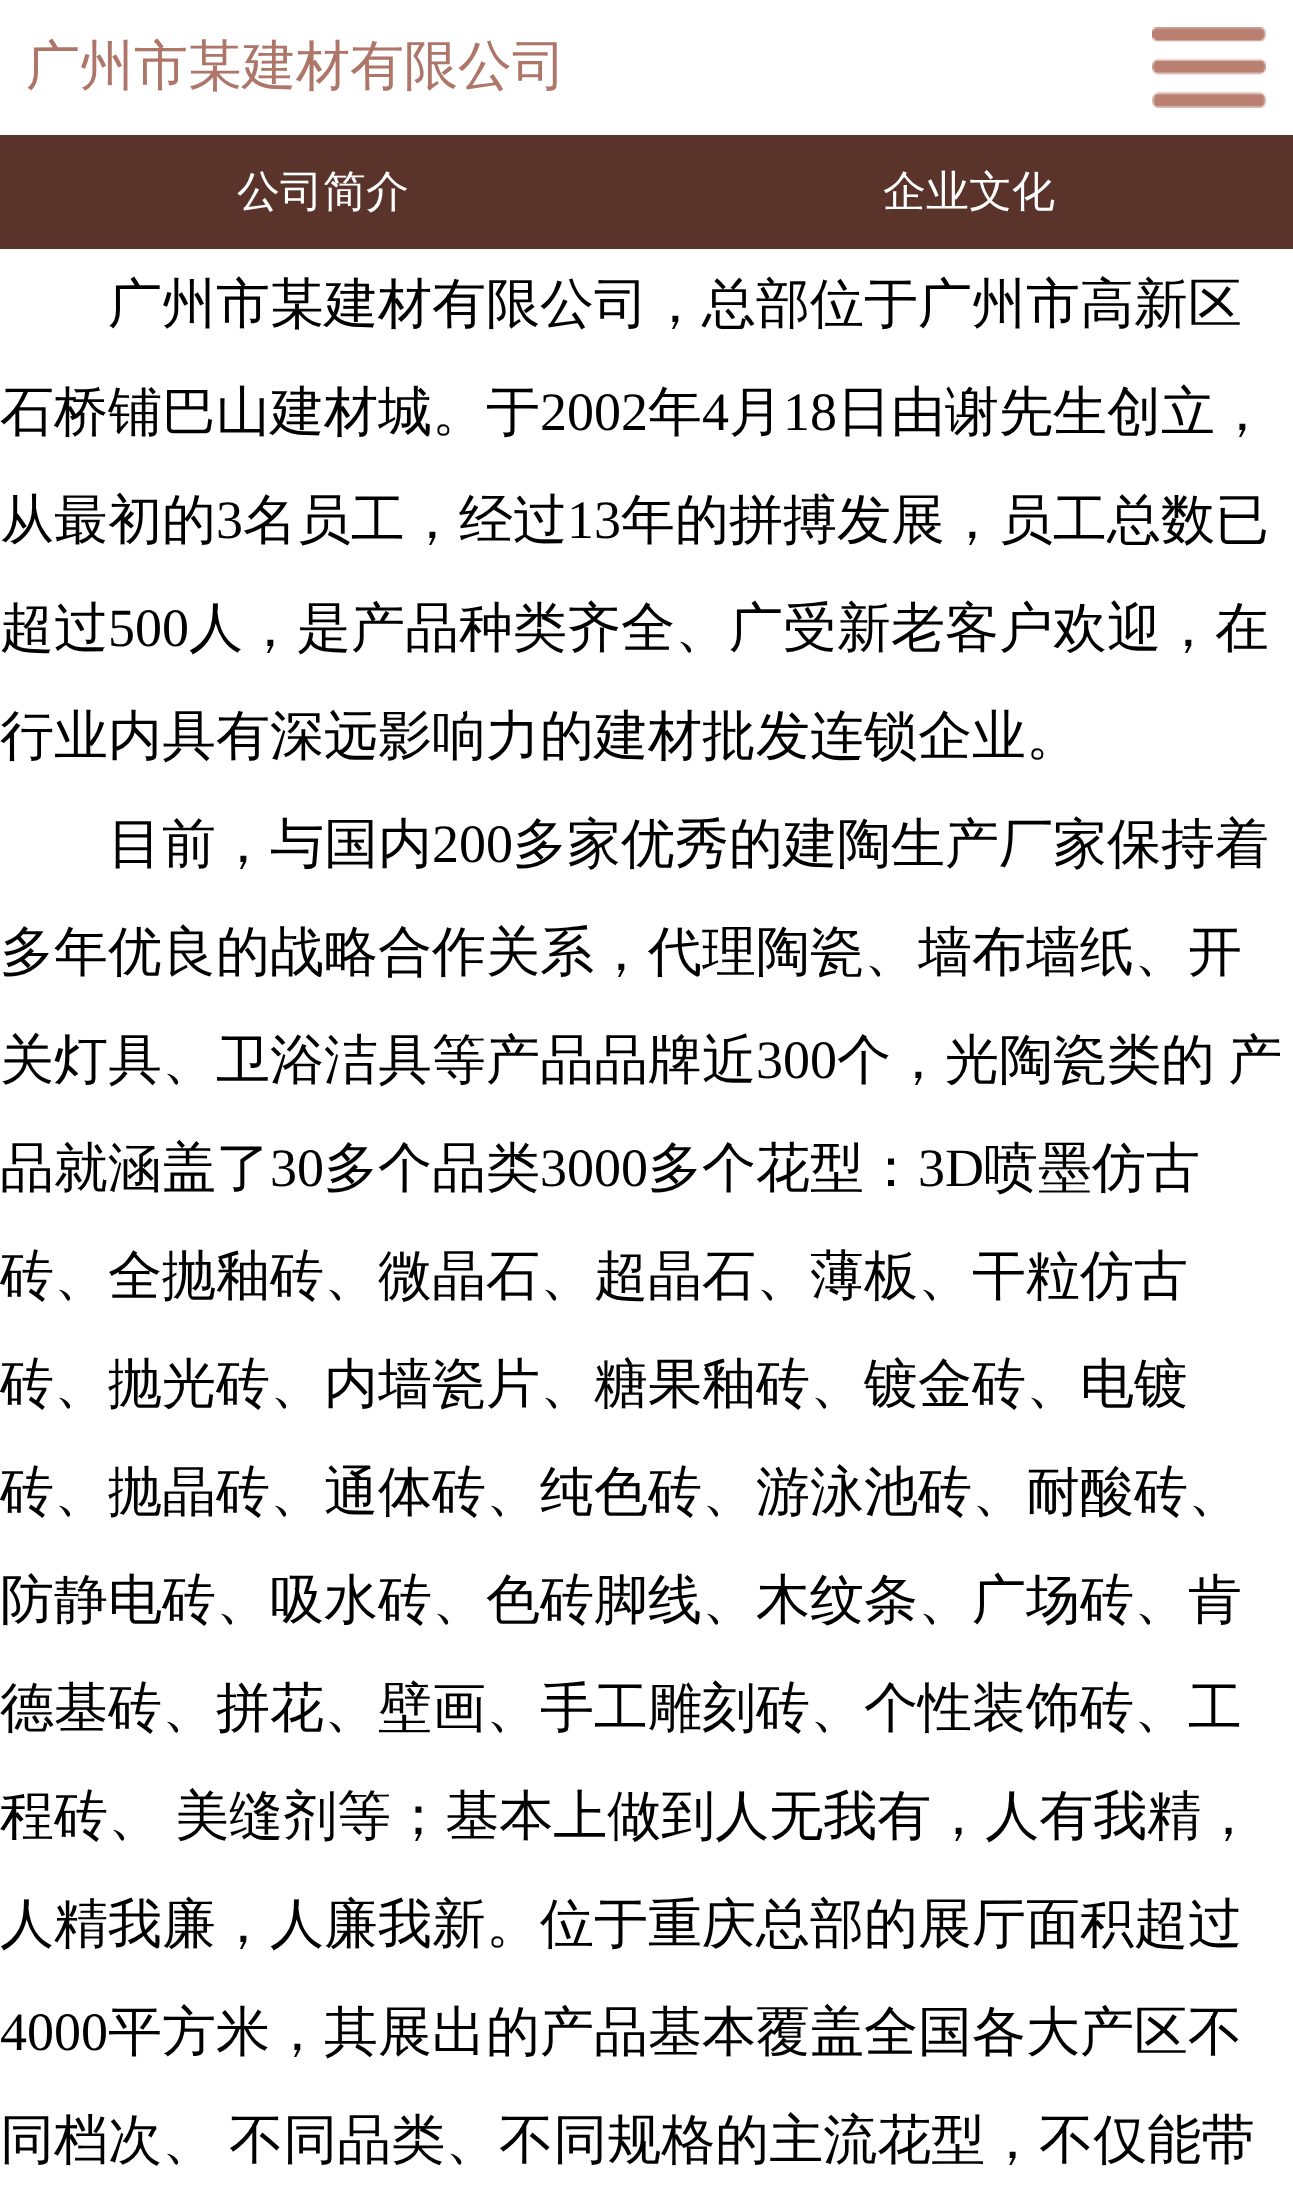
<svg xmlns="http://www.w3.org/2000/svg" width="1293" height="2192">
	<rect width="100%" height="100%" fill="#FFFFFF" />
	<text x="26" y="84" font-family="WenQuanYi Zen Hei" font-size="54" font-weight="500" fill="#AD7669">广州市某建材有限公司</text>
	<image x="1152" y="27" width="114" height="81" href="assets/img1.png" />
	<rect x="0" y="135" width="1293" height="114" fill="#5A342B" />
	<g font-family="WenQuanYi Zen Hei" font-size="43" font-weight="500" fill="#FFFFFF">
		<text x="237" y="206">公司简介</text>
		<text x="883" y="206">企业文化</text>
	</g>
	<g font-family="WenQuanYi Zen Hei" font-size="54" font-weight="500" fill="#000000">
		<text x="108" y="322">广州市某建材有限公司，总部位于广州市高新区</text>
		<text x="0" y="430">石桥铺巴山建材城。于</text>
	</g>
	<text x="540" y="430" font-family="Liberation Serif" font-size="54" fill="#000000">2002</text>
	<text x="648" y="430" font-family="WenQuanYi Zen Hei" font-size="54" font-weight="500" fill="#000000">年</text>
	<text x="702" y="430" font-family="Liberation Serif" font-size="54" fill="#000000">4</text>
	<text x="729" y="430" font-family="WenQuanYi Zen Hei" font-size="54" font-weight="500" fill="#000000">月</text>
	<text x="783" y="430" font-family="Liberation Serif" font-size="54" fill="#000000">18</text>
	<g font-family="WenQuanYi Zen Hei" font-size="54" font-weight="500" fill="#000000">
		<text x="837" y="430">日由谢先生创立，</text>
		<text x="0" y="538">从最初的</text>
	</g>
	<text x="216" y="538" font-family="Liberation Serif" font-size="54" fill="#000000">3</text>
	<text x="243" y="538" font-family="WenQuanYi Zen Hei" font-size="54" font-weight="500" fill="#000000">名员工，经过</text>
	<text x="567" y="538" font-family="Liberation Serif" font-size="54" fill="#000000">13</text>
	<g font-family="WenQuanYi Zen Hei" font-size="54" font-weight="500" fill="#000000">
		<text x="621" y="538">年的拼搏发展，员工总数已</text>
		<text x="0" y="646">超过</text>
	</g>
	<text x="108" y="646" font-family="Liberation Serif" font-size="54" fill="#000000">500</text>
	<g font-family="WenQuanYi Zen Hei" font-size="54" font-weight="500" fill="#000000">
		<text x="189" y="646">人，是产品种类齐全、广受新老客户欢迎，在</text>
		<text x="0" y="754">行业内具有深远影响力的建材批发连锁企业。</text>
		<text x="108" y="862">目前，与国内</text>
	</g>
	<text x="432" y="862" font-family="Liberation Serif" font-size="54" fill="#000000">200</text>
	<g font-family="WenQuanYi Zen Hei" font-size="54" font-weight="500" fill="#000000">
		<text x="513" y="862">多家优秀的建陶生产厂家保持着</text>
		<text x="0" y="970">多年优良的战略合作关系，代理陶瓷、墙布墙纸、开</text>
		<text x="0" y="1078">关灯具、卫浴洁具等产品品牌近</text>
	</g>
	<text x="756" y="1078" font-family="Liberation Serif" font-size="54" fill="#000000">300</text>
	<g font-family="WenQuanYi Zen Hei" font-size="54" font-weight="500" fill="#000000">
		<text x="837" y="1078" word-spacing="-3">个，光陶瓷类的 产</text>
		<text x="0" y="1186">品就涵盖了</text>
	</g>
	<text x="270" y="1186" font-family="Liberation Serif" font-size="54" fill="#000000">30</text>
	<text x="324" y="1186" font-family="WenQuanYi Zen Hei" font-size="54" font-weight="500" fill="#000000">多个品类</text>
	<text x="540" y="1186" font-family="Liberation Serif" font-size="54" fill="#000000">3000</text>
	<text x="648" y="1186" font-family="WenQuanYi Zen Hei" font-size="54" font-weight="500" fill="#000000">多个花型：</text>
	<text x="918" y="1186" font-family="Liberation Serif" font-size="54" fill="#000000">3D</text>
	<g font-family="WenQuanYi Zen Hei" font-size="54" font-weight="500" fill="#000000">
		<text x="984" y="1186">喷墨仿古</text>
		<text x="0" y="1294">砖、全抛釉砖、微晶石、超晶石、薄板、干粒仿古</text>
		<text x="0" y="1402">砖、抛光砖、内墙瓷片、糖果釉砖、镀金砖、电镀</text>
		<text x="0" y="1510">砖、抛晶砖、通体砖、纯色砖、游泳池砖、耐酸砖、</text>
		<text x="0" y="1618">防静电砖、吸水砖、色砖脚线、木纹条、广场砖、肯</text>
		<text x="0" y="1726">德基砖、拼花、壁画、手工雕刻砖、个性装饰砖、工</text>
		<text x="0" y="1834" word-spacing="-3">程砖、 美缝剂等；基本上做到人无我有，人有我精，</text>
		<text x="0" y="1942">人精我廉，人廉我新。位于重庆总部的展厅面积超过</text>
	</g>
	<text x="0" y="2050" font-family="Liberation Serif" font-size="54" fill="#000000">4000</text>
	<g font-family="WenQuanYi Zen Hei" font-size="54" font-weight="500" fill="#000000">
		<text x="108" y="2050">平方米，其展出的产品基本覆盖全国各大产区不</text>
		<text x="0" y="2158" word-spacing="-3">同档次、 不同品类、不同规格的主流花型，不仅能带</text>
	</g>
</svg>
